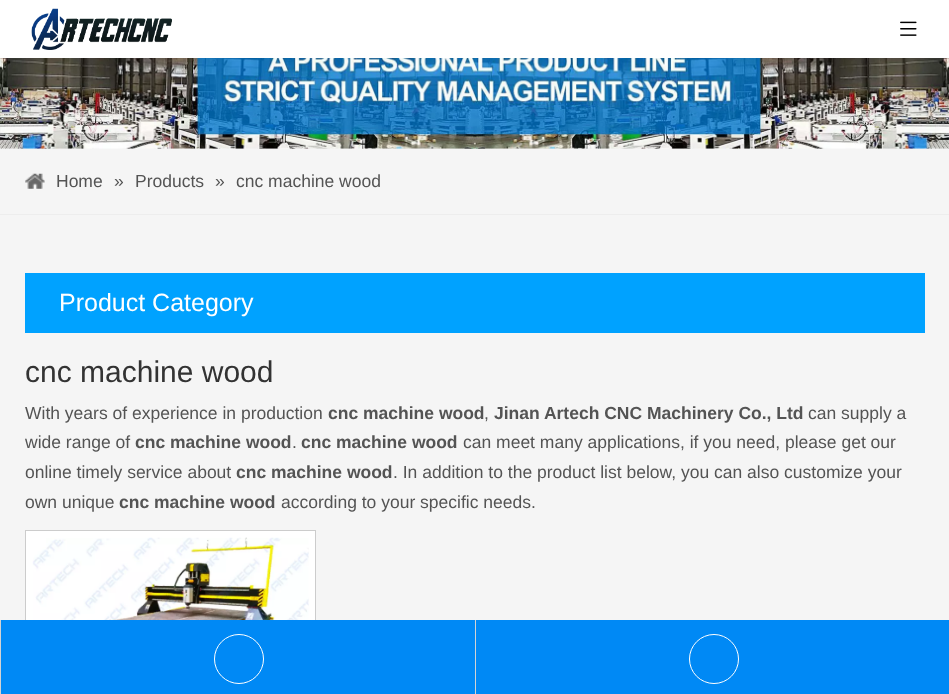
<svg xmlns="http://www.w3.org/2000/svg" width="949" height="694">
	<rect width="100%" height="100%" fill="#F5F5F5" />
	<rect x="0" y="0" width="949" height="58" fill="#FFFFFF" />
	<image x="31" y="8" width="141" height="42" href="assets/img1.png" />
	<image x="900" y="21" width="17" height="15" href="assets/img2.png" />
	<image x="0" y="58" width="949" height="91" href="assets/img3.png" />
	<rect x="0" y="214" width="949" height="1" fill="#EDEDED" />
	<image x="25" y="173" width="20" height="16" href="assets/img4.png" />
	<g font-family="Liberation Sans" font-size="17.5" fill="#545454">
		<text x="56" y="187">Home</text>
		<text x="114" y="187">»</text>
		<text x="135" y="187">Products</text>
		<text x="215" y="187">»</text>
		<text x="236" y="187">cnc machine wood</text>
	</g>
	<rect x="25" y="273" width="900" height="60" fill="#00A2FF" />
	<text x="59" y="311" font-family="Liberation Sans" font-size="25" fill="#FFFFFF">Product Category</text>
	<text x="25" y="382" font-family="Liberation Sans" font-size="30" fill="#333333">cnc machine wood</text>
	<text x="25" y="419" font-family="Liberation Sans" font-size="17.5" fill="#545454">With years of experience in production</text>
	<text x="328" y="419" font-family="Liberation Sans" font-size="17.5" font-weight="700" fill="#545454">cnc machine wood</text>
	<text x="484" y="419" font-family="Liberation Sans" font-size="17.5" fill="#545454">,</text>
	<text x="494" y="419" font-family="Liberation Sans" font-size="17.5" font-weight="700" fill="#545454">Jinan Artech CNC Machinery Co., Ltd</text>
	<g font-family="Liberation Sans" font-size="17.5" fill="#545454">
		<text x="808" y="419">can supply a</text>
		<text x="25" y="448">wide range of</text>
	</g>
	<text x="135" y="448" font-family="Liberation Sans" font-size="17.5" font-weight="700" fill="#545454">cnc machine wood</text>
	<text x="292" y="448" font-family="Liberation Sans" font-size="17.5" fill="#545454">.</text>
	<text x="301" y="448" font-family="Liberation Sans" font-size="17.5" font-weight="700" fill="#545454">cnc machine wood</text>
	<g font-family="Liberation Sans" font-size="17.5" fill="#545454">
		<text x="463" y="448">can meet many applications, if you need, please get our</text>
		<text x="25" y="478">online timely service about</text>
	</g>
	<text x="236" y="478" font-family="Liberation Sans" font-size="17.5" font-weight="700" fill="#545454">cnc machine wood</text>
	<g font-family="Liberation Sans" font-size="17.5" fill="#545454">
		<text x="393" y="478">. In addition to the product list below, you can also customize your</text>
		<text x="25" y="508">own unique</text>
	</g>
	<text x="119" y="508" font-family="Liberation Sans" font-size="17.5" font-weight="700" fill="#545454">cnc machine wood</text>
	<text x="281" y="508" font-family="Liberation Sans" font-size="17.5" fill="#545454">according to your specific needs.</text>
	<rect x="26" y="531" width="289" height="89" fill="#FFFFFF" />
	<rect x="25.5" y="530.5" width="290" height="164" fill="none" stroke="#CCCCCC" />
	<image x="32" y="537" width="277" height="83" href="assets/img5.png" />
	<rect x="1" y="620" width="474" height="74" fill="#0089F5" />
	<rect x="0" y="620" width="1" height="74" fill="#D3D3D3" />
	<circle cx="239" cy="659" r="24.5" fill="none" stroke="#FFFFFF" />
	<rect x="476" y="620" width="473" height="74" fill="#0089F5" />
	<rect x="475" y="620" width="1" height="74" fill="#D3D3D3" />
	<circle cx="714" cy="659" r="24.5" fill="none" stroke="#FFFFFF" />
</svg>
